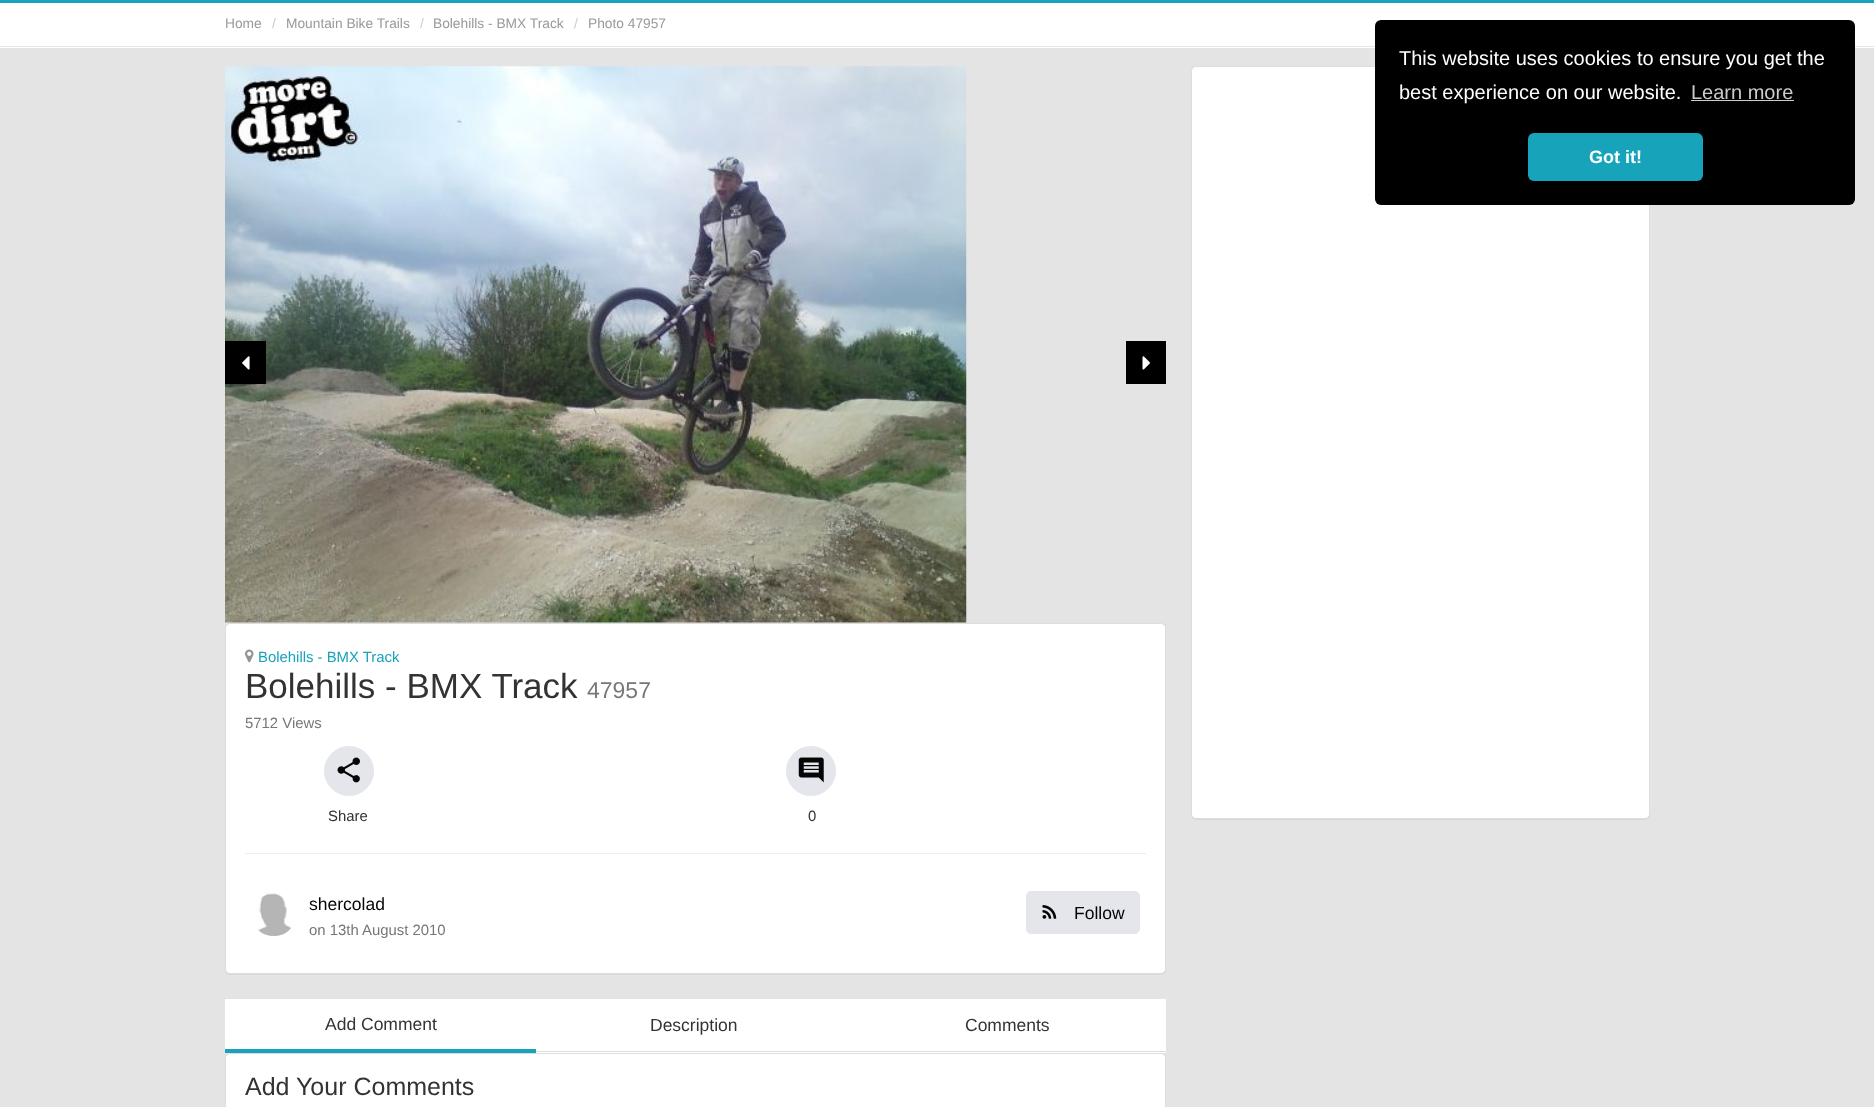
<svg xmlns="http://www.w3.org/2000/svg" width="1874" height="1107">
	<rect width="100%" height="100%" fill="#E4E4E4" />
	<rect x="0" y="0" width="1874" height="3" fill="#17A4BA" />
	<rect x="0" y="3" width="1874" height="45" fill="#FFFFFF" />
	<rect x="0" y="46" width="1874" height="1" fill="#E5E5E5" />
	<text x="225" y="28" font-family="Liberation Sans" font-size="13.75" fill="#999999">Home</text>
	<text x="272" y="28" font-family="Liberation Sans" font-size="13.75" fill="#CCCCCC">/</text>
	<text x="286" y="28" font-family="Liberation Sans" font-size="13.75" fill="#999999">Mountain Bike Trails</text>
	<text x="420" y="28" font-family="Liberation Sans" font-size="13.75" fill="#CCCCCC">/</text>
	<text x="433" y="28" font-family="Liberation Sans" font-size="13.75" fill="#999999">Bolehills - BMX Track</text>
	<text x="574" y="28" font-family="Liberation Sans" font-size="13.75" fill="#CCCCCC">/</text>
	<text x="588" y="28" font-family="Liberation Sans" font-size="13.75" fill="#999999">Photo 47957</text>
	<rect x="1191" y="68" width="459" height="752" rx="5" fill="#000000" fill-opacity="0.05" filter="blur(0.5px)" />
	<rect x="1191.5" y="66.5" width="458" height="752" rx="4.5" fill="#FFFFFF" stroke="#DDDDDD" />
	<rect x="1375" y="20" width="480" height="185" rx="6" fill="#000000" />
	<g font-family="Liberation Sans" font-size="20" fill="#FFFFFF">
		<text x="1399" y="65">This website uses cookies to ensure you get the</text>
		<text x="1399" y="99">best experience on our website.</text>
	</g>
	<text x="1691" y="99" font-family="Liberation Sans" font-size="20" fill="#CCCCCC">Learn more</text>
	<rect x="1691" y="100" width="103" height="1" fill="#CCCCCC" />
	<rect x="1528" y="133" width="175" height="48" rx="6" fill="#17A4BA" />
	<text x="1589" y="163" font-family="Liberation Sans" font-size="18" font-weight="700" fill="#FFFFFF">Got it!</text>
	<rect x="225" y="624" width="941" height="351" rx="5" fill="#000000" fill-opacity="0.05" filter="blur(0.5px)" />
	<image x="225" y="66" width="742" height="557" href="assets/img1.png" />
	<rect x="225" y="341" width="41" height="43" fill="#000000" />
	<image x="242" y="356" width="8" height="14" href="assets/img2.png" />
	<rect x="1126" y="341" width="40" height="43" fill="#000000" />
	<image x="1142" y="356" width="8" height="14" href="assets/img3.png" />
	<rect x="225.5" y="623.5" width="940" height="350" rx="4.5" fill="#FFFFFF" stroke="#DDDDDD" />
	<image x="245" y="649" width="9" height="14" href="assets/img4.png" />
	<text x="258" y="662" font-family="Liberation Sans" font-size="14.9" fill="#17A4BA">Bolehills - BMX Track</text>
	<text x="245" y="698" font-family="Liberation Sans" font-size="35" fill="#333333">Bolehills - BMX Track</text>
	<text x="587" y="698" font-family="Liberation Sans" font-size="23" fill="#777777">47957</text>
	<text x="245" y="728" font-family="Liberation Sans" font-size="14.9" fill="#777777">5712 Views</text>
	<circle cx="349" cy="771" r="24.5" fill="#E4E6EB" stroke="#E4E6EB" />
	<image x="337" y="757" width="23" height="26" href="assets/img5.png" />
	<text x="328" y="821" font-family="Liberation Sans" font-size="14.9" fill="#333333">Share</text>
	<circle cx="811" cy="771" r="24.5" fill="#E4E6EB" stroke="#E4E6EB" />
	<image x="798" y="757" width="26" height="26" href="assets/img6.png" />
	<text x="808" y="821" font-family="Liberation Sans" font-size="14.9" fill="#333333">0</text>
	<rect x="245" y="853" width="901" height="1" fill="#EEEEEE" />
	<image x="258" y="893" width="34" height="44" href="assets/img7.png" />
	<text x="309" y="910" font-family="Liberation Sans" font-size="17.5" fill="#050505">shercolad</text>
	<rect x="1026.5" y="891.5" width="113" height="42" rx="4.5" fill="#E4E6EB" stroke="#E4E6EB" />
	<image x="1042" y="905" width="15" height="14" href="assets/img8.png" />
	<text x="1074" y="919" font-family="Liberation Sans" font-size="17.5" fill="#050505">Follow</text>
	<text x="309" y="935" font-family="Liberation Sans" font-size="14.9" fill="#777777">on 13th August 2010</text>
	<rect x="225" y="999" width="941" height="54" fill="#FFFFFF" />
	<rect x="536" y="1051" width="630" height="1" fill="#DDDDDD" />
	<rect x="225" y="1049" width="311" height="4" fill="#17A4BA" />
	<g font-family="Liberation Sans" font-size="17.5" fill="#333333">
		<text x="325" y="1030">Add Comment</text>
		<text x="650" y="1031">Description</text>
		<text x="965" y="1031">Comments</text>
	</g>
	<rect x="225.5" y="1053.5" width="940" height="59" rx="4.5" fill="#FFFFFF" stroke="#DDDDDD" />
	<text x="245" y="1095" font-family="Liberation Sans" font-size="25" fill="#333333">Add Your Comments</text>
</svg>
